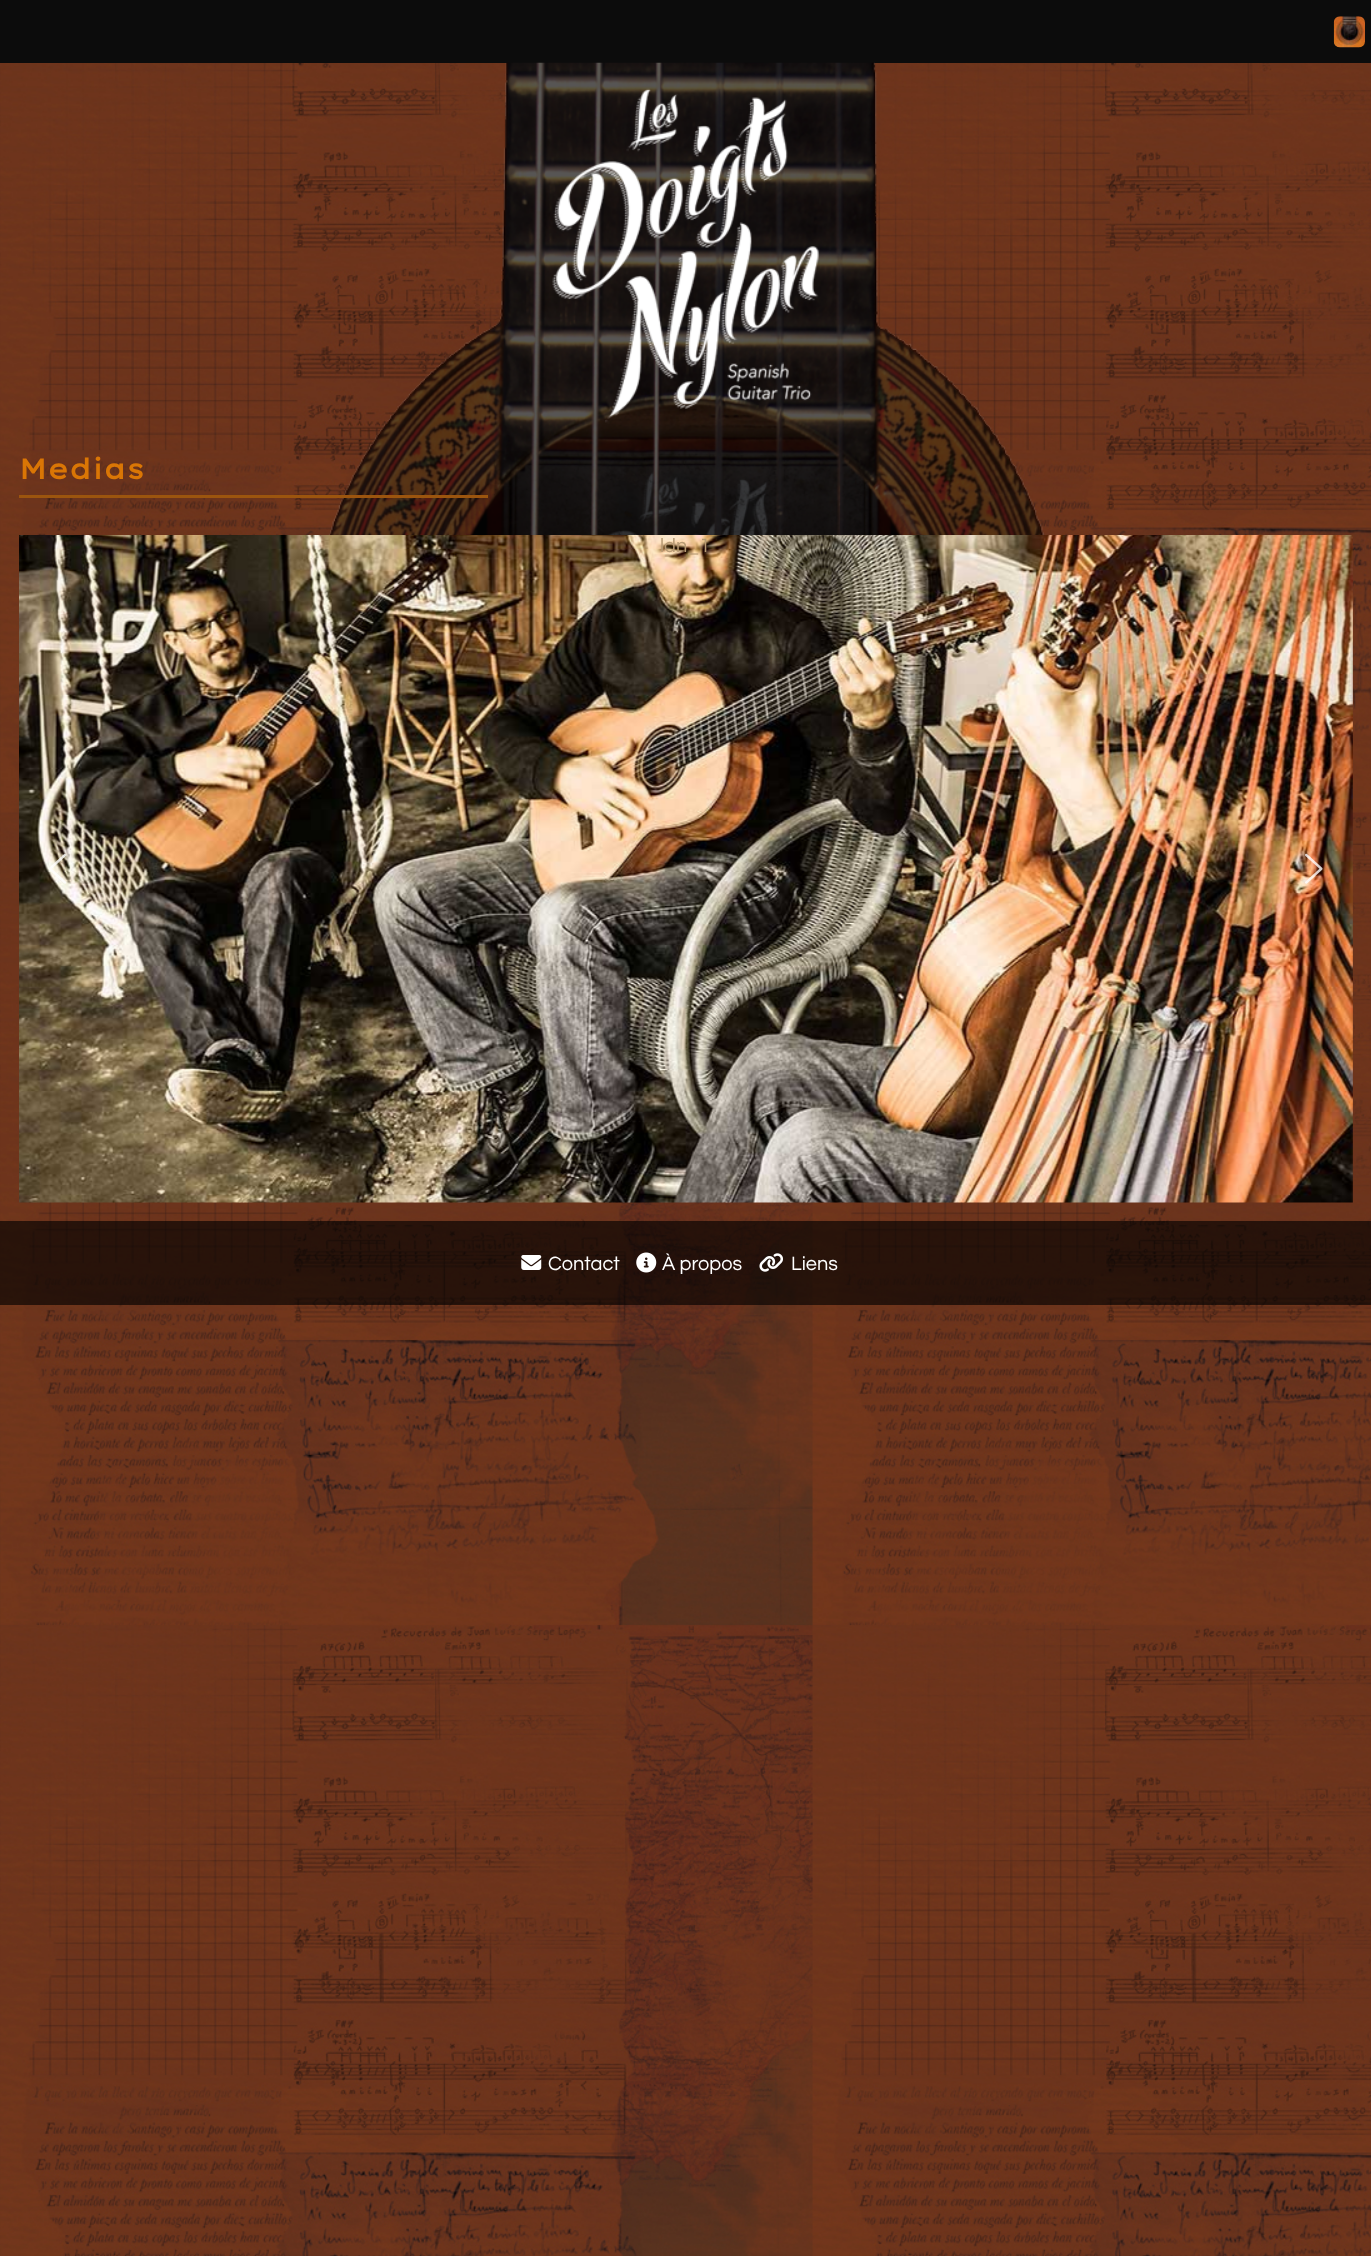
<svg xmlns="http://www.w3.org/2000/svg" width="1371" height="2256">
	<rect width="100%" height="100%" fill="#FFFFFF" />
	<image x="0" y="63" width="1371" height="2193" href="assets/img1.png" />
	<rect x="0" y="0" width="1371" height="63" fill="#0C0C0C" />
	<image x="1333" y="16" width="32" height="32" href="assets/img2.png" />
	<image x="328" y="62" width="716" height="473" href="assets/img3.png" />
	<image x="552" y="88" width="267" height="335" href="assets/img4.png" />
	<text x="19" y="479" font-family="Lexend Exa" font-size="28" font-weight="700" letter-spacing="1.25" fill="#DA7605">Medias</text>
	<rect x="19" y="495" width="469" height="3" fill="#9C550E" />
	<image x="19" y="535" width="1334" height="668" href="assets/img5.png" />
	<text x="660" y="552" font-family="Questrial" font-size="20" fill="#B79A74">ldn_1</text>
	<image x="49" y="853" width="18" height="31" href="assets/img6.png" />
	<image x="1305" y="853" width="18" height="31" href="assets/img7.png" />
	<rect x="0" y="1221" width="1371" height="84" fill="#000000" fill-opacity="0.63" />
	<image x="521" y="1255" width="21" height="15" href="assets/img8.png" />
	<text x="548" y="1270" font-family="Questrial" font-size="20" fill="#FFFFFF">Contact</text>
	<image x="636" y="1252" width="21" height="21" href="assets/img9.png" />
	<text x="662" y="1270" font-family="Questrial" font-size="20" fill="#FFFFFF">À propos</text>
	<image x="759" y="1253" width="24" height="19" href="assets/img10.png" />
	<text x="791" y="1270" font-family="Questrial" font-size="20" fill="#FFFFFF">Liens</text>
</svg>
